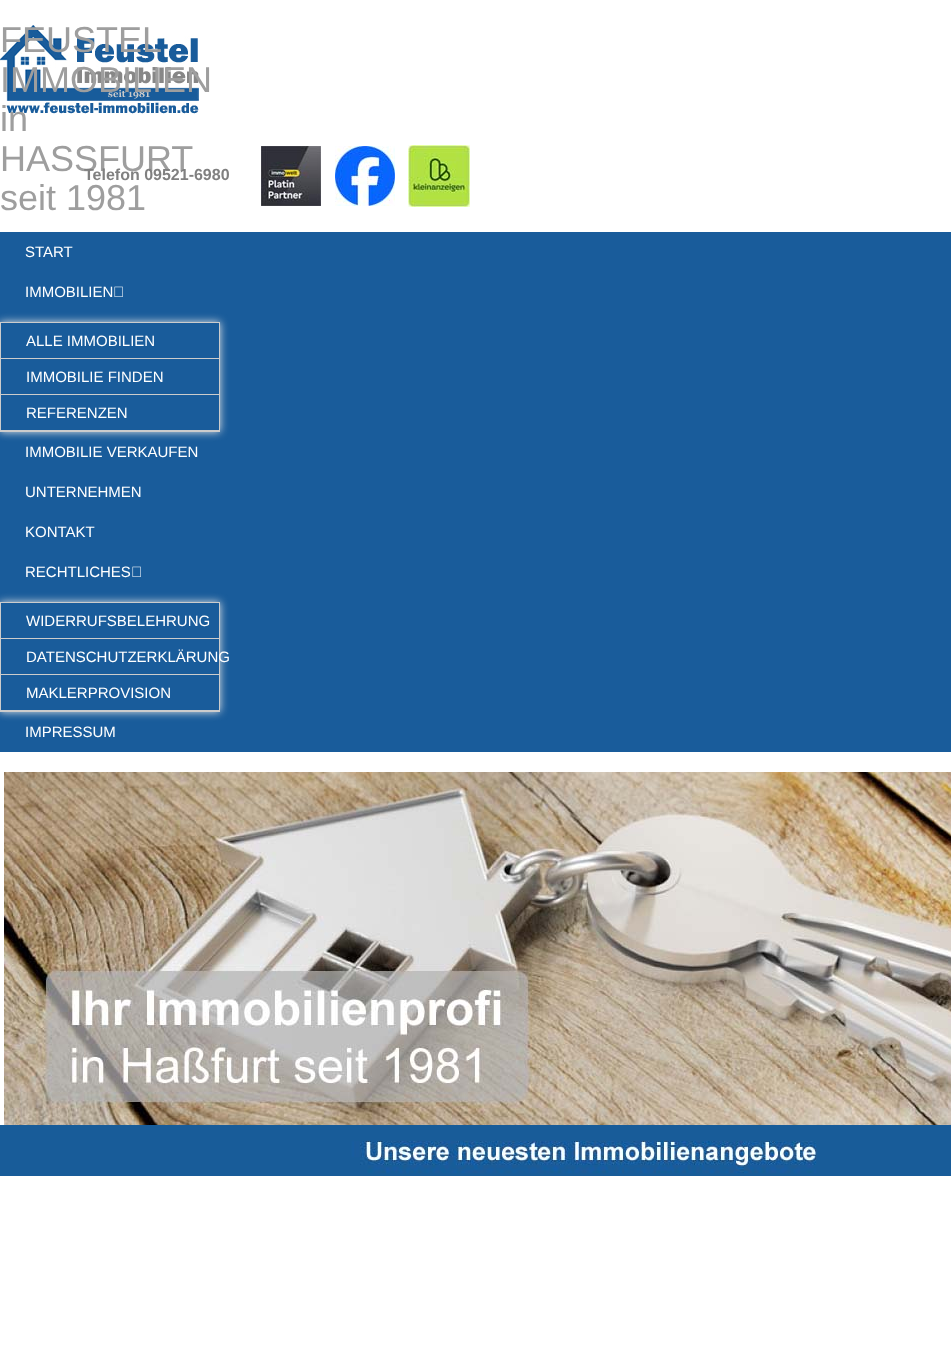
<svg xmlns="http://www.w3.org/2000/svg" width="951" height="1350">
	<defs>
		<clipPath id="clip1"><path d="M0 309H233V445H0ZM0 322H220V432H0Z" clip-rule="evenodd" /></clipPath>
		<clipPath id="clip2"><path d="M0 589H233V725H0ZM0 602H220V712H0Z" clip-rule="evenodd" /></clipPath>
	</defs>
	<rect width="100%" height="100%" fill="#FFFFFF" />
	<image x="0" y="25" width="199" height="90" href="assets/img1.png" />
	<g font-family="Liberation Sans" font-size="36" fill="#9E9E9E">
		<text x="0" y="52">FEUSTEL</text>
		<text x="0" y="92">IMMOBILIEN</text>
		<text x="0" y="131">in</text>
		<text x="0" y="171">HASSFURT</text>
		<text x="0" y="210">seit 1981</text>
	</g>
	<text x="84" y="180" font-family="Liberation Sans" font-size="16" font-weight="700" fill="#808080">Telefon 09521-6980</text>
	<image x="261" y="146" width="60" height="60" href="assets/img2.png" />
	<image x="335" y="146" width="60" height="60" href="assets/img3.png" />
	<image x="408" y="145" width="62" height="62" href="assets/img4.png" />
	<rect x="0" y="232" width="951" height="520" fill="#195C9B" />
	<g font-family="Liberation Sans" font-size="15" fill="#FFFFFF">
		<text x="25" y="257">START</text>
		<text x="25" y="297">IMMOBILIEN</text>
	</g>
	<image x="114" y="286" width="9" height="11" href="assets/img5.png" />
	<g clip-path="url(#clip1)">
		<rect x="0" y="322" width="220" height="110" fill="#E2E2E2" filter="blur(4px)" />
	</g>
	<rect x="0.5" y="322.5" width="219" height="109" fill="none" stroke="#CCCCCC" />
	<rect x="1" y="358" width="218" height="1" fill="#CCCCCC" />
	<text x="26" y="346" font-family="Liberation Sans" font-size="15" fill="#FFFFFF">ALLE IMMOBILIEN</text>
	<rect x="1" y="394" width="218" height="1" fill="#CCCCCC" />
	<text x="26" y="382" font-family="Liberation Sans" font-size="15" fill="#FFFFFF">IMMOBILIE FINDEN</text>
	<rect x="1" y="430" width="218" height="1" fill="#CCCCCC" />
	<g font-family="Liberation Sans" font-size="15" fill="#FFFFFF">
		<text x="26" y="418">REFERENZEN</text>
		<text x="25" y="457">IMMOBILIE VERKAUFEN</text>
		<text x="25" y="497">UNTERNEHMEN</text>
		<text x="25" y="537">KONTAKT</text>
		<text x="25" y="577">RECHTLICHES</text>
	</g>
	<image x="132" y="566" width="9" height="11" href="assets/img5.png" />
	<g clip-path="url(#clip2)">
		<rect x="0" y="602" width="220" height="110" fill="#E2E2E2" filter="blur(4px)" />
	</g>
	<rect x="0.5" y="602.5" width="219" height="109" fill="none" stroke="#CCCCCC" />
	<rect x="1" y="638" width="218" height="1" fill="#CCCCCC" />
	<text x="26" y="626" font-family="Liberation Sans" font-size="15" fill="#FFFFFF">WIDERRUFSBELEHRUNG</text>
	<rect x="1" y="674" width="218" height="1" fill="#CCCCCC" />
	<text x="26" y="662" font-family="Liberation Sans" font-size="15" fill="#FFFFFF">DATENSCHUTZERKLÄRUNG</text>
	<rect x="1" y="710" width="218" height="1" fill="#CCCCCC" />
	<g font-family="Liberation Sans" font-size="15" fill="#FFFFFF">
		<text x="26" y="698">MAKLERPROVISION</text>
		<text x="25" y="737">IMPRESSUM</text>
	</g>
	<image x="4" y="772" width="947" height="353" href="assets/img6.png" />
	<image x="0" y="1125" width="951" height="51" href="assets/img7.png" />
</svg>
